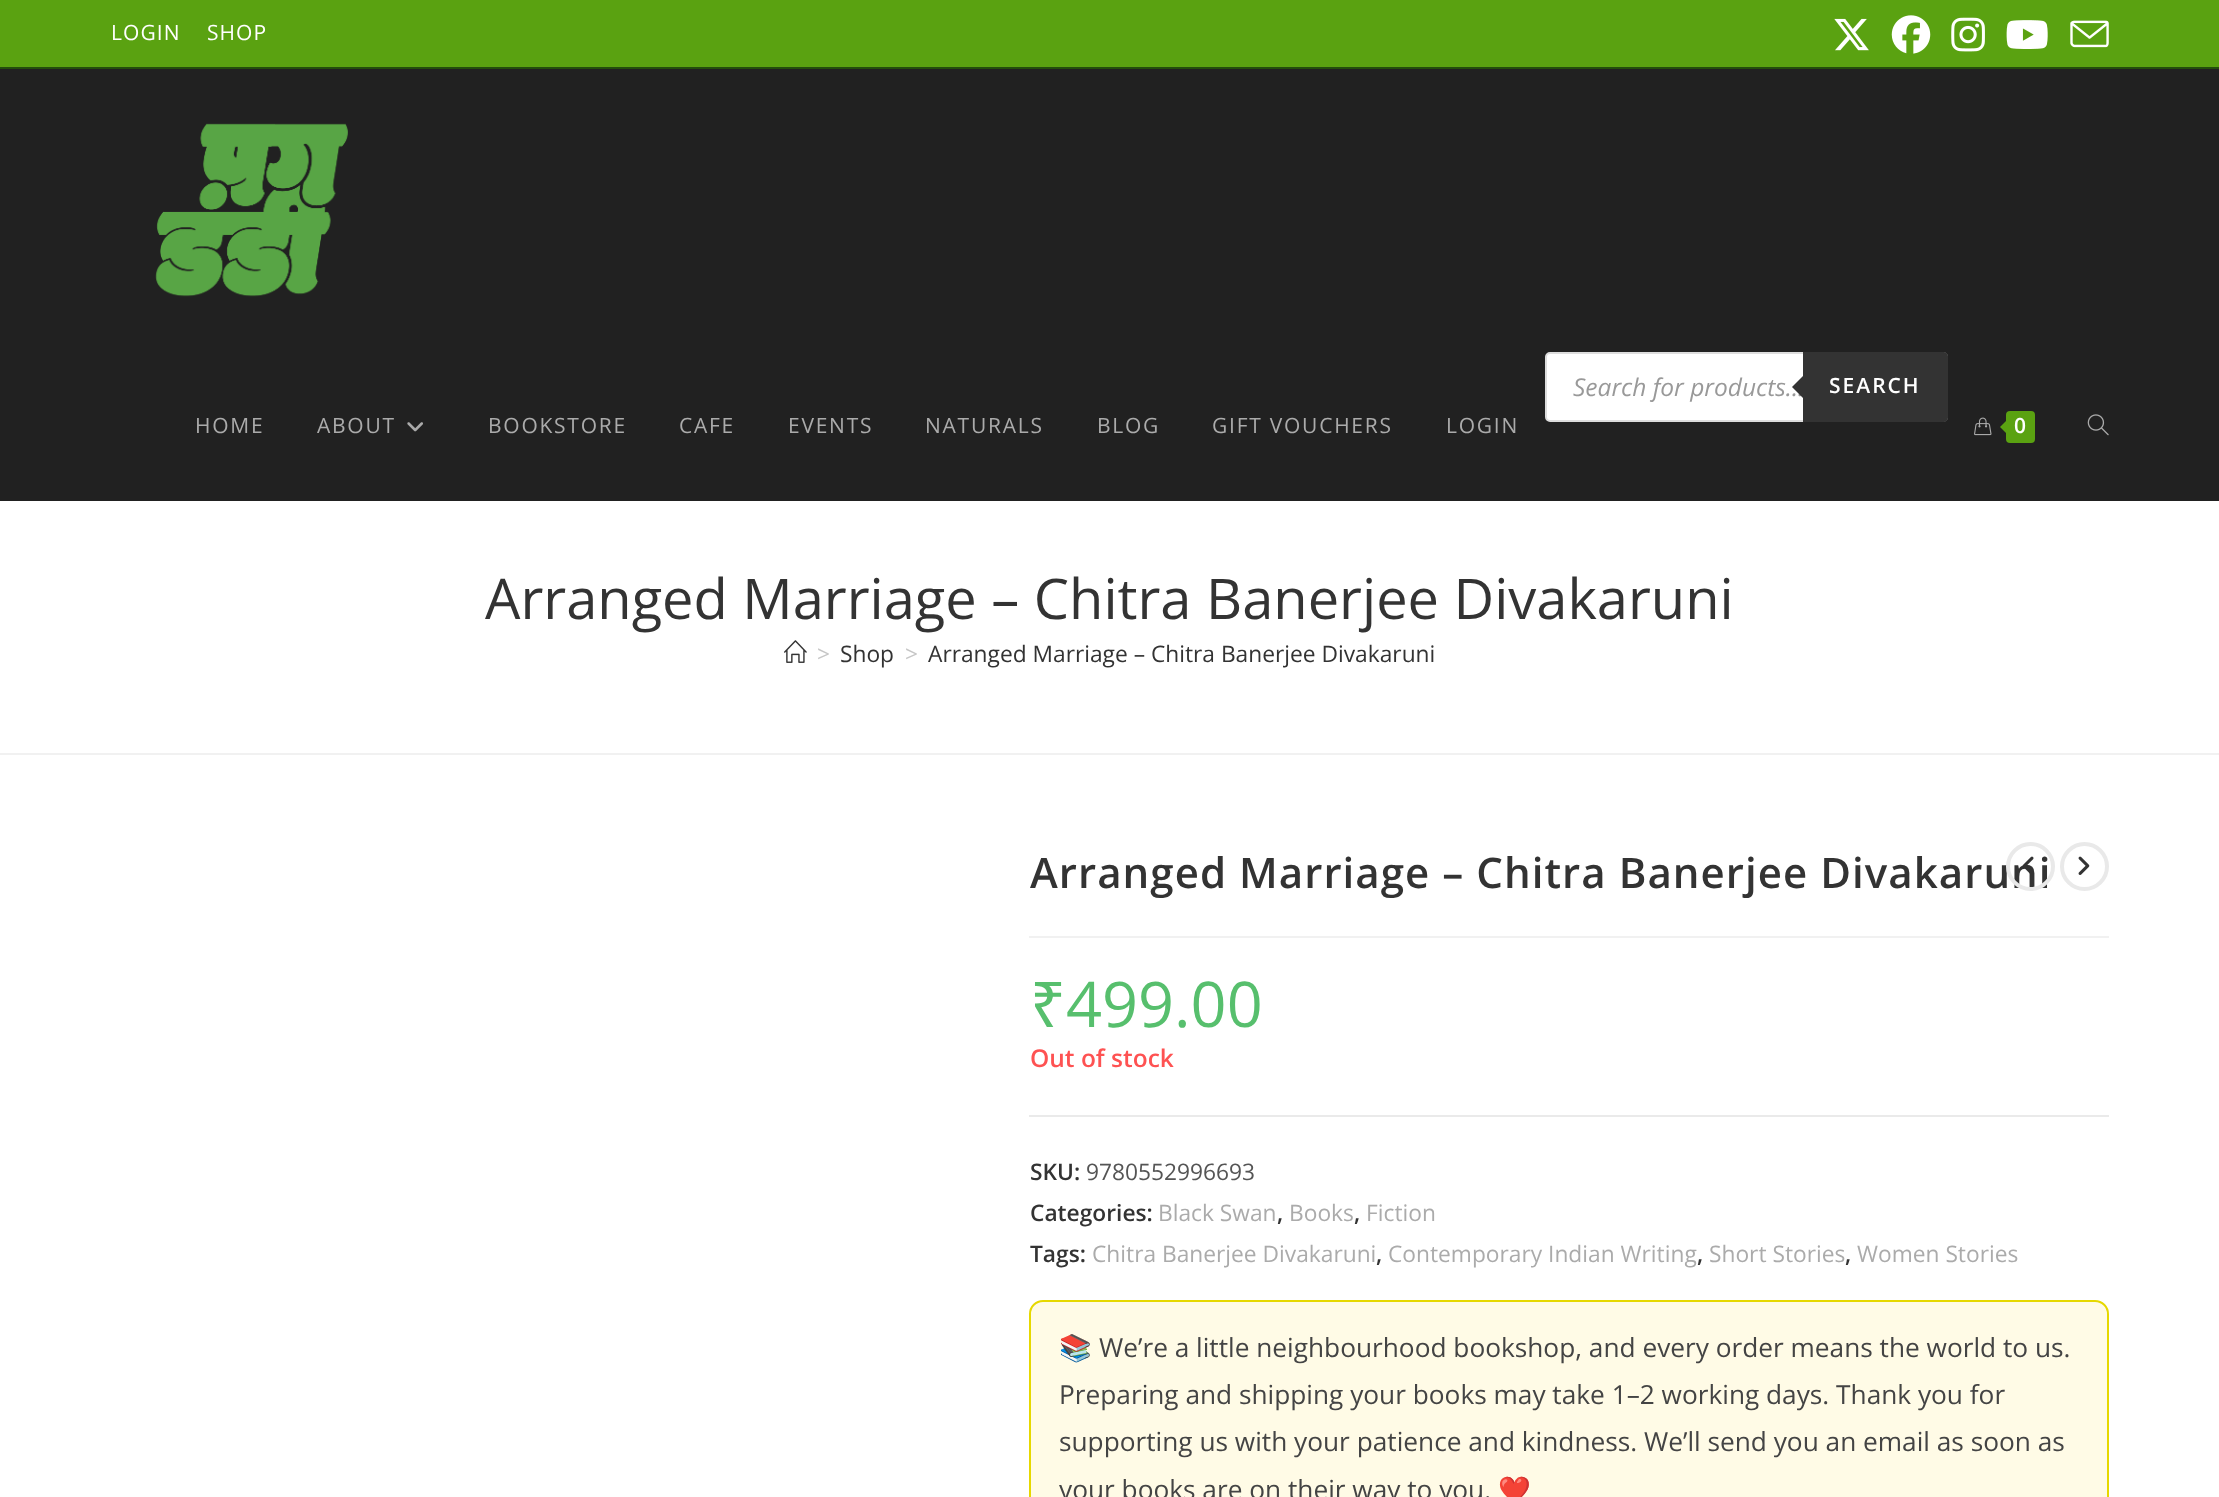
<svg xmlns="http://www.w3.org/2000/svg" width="2219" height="1497">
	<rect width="100%" height="100%" fill="#FFFFFF" />
	<rect x="0" y="0" width="2219" height="67" fill="#5AA211" />
	<rect x="0" y="67" width="2219" height="2" fill="#234E0C" />
	<g font-family="Open Sans" font-size="21" letter-spacing="1.05" fill="#FFFFFF">
		<text x="111" y="40">LOGIN</text>
		<text x="207" y="40">SHOP</text>
	</g>
	<image x="1834" y="18" width="35" height="33" href="assets/img1.png" />
	<image x="1891" y="15" width="40" height="39" href="assets/img2.png" />
	<image x="1951" y="17" width="34" height="35" href="assets/img3.png" />
	<image x="2006" y="20" width="42" height="29" href="assets/img4.png" />
	<image x="2070" y="20" width="39" height="28" href="assets/img5.png" />
	<rect x="0" y="69" width="2219" height="432" fill="#212121" />
	<image x="155" y="123" width="193" height="174" href="assets/img6.png" />
	<rect x="1546" y="353" width="401" height="68" rx="4" fill="#FFFFFF" stroke="#DDDDDD" stroke-width="2" />
	<text x="1573" y="396" font-family="Open Sans" font-size="24.5" font-style="italic" fill="#999999">Search for products...</text>
	<path d="M1803 352H1944C1946 352 1948 354 1948 356V418C1948 420 1946 422 1944 422H1803Z" fill="#333333" />
	<path d="M1806 373V401L1792 387Z" fill="#333333" />
	<text x="1829" y="393" font-family="Open Sans" font-size="21" font-weight="600" letter-spacing="2" fill="#FFFFFF">SEARCH</text>
	<g font-family="Open Sans" font-size="21" letter-spacing="1.75" fill="#ABABAB">
		<text x="195" y="433">HOME</text>
		<text x="317" y="433">ABOUT</text>
	</g>
	<image x="407" y="422" width="16" height="10" href="assets/img7.png" />
	<g font-family="Open Sans" font-size="21" letter-spacing="1.75" fill="#ABABAB">
		<text x="488" y="433">BOOKSTORE</text>
		<text x="679" y="433">CAFE</text>
		<text x="788" y="433">EVENTS</text>
		<text x="925" y="433">NATURALS</text>
		<text x="1097" y="433">BLOG</text>
		<text x="1212" y="433">GIFT VOUCHERS</text>
		<text x="1446" y="433">LOGIN</text>
	</g>
	<image x="1974" y="417" width="18" height="19" href="assets/img8.png" />
	<rect x="2006" y="411" width="29" height="32" rx="4" fill="#5AA211" />
	<path d="M2009 418V436L2000 427Z" fill="#5AA211" />
	<text x="2014" y="433" font-family="Open Sans" font-size="21" font-weight="600" fill="#FFFFFF">0</text>
	<image x="2087" y="414" width="22" height="22" href="assets/img9.png" />
	<rect x="0" y="753" width="2219" height="2" fill="#F1F1F1" />
	<text x="485" y="619" font-family="Open Sans" font-size="56" fill="#333333">Arranged Marriage – Chitra Banerjee Divakaruni</text>
	<image x="784" y="640" width="23" height="23" href="assets/img10.png" />
	<text x="817" y="662" font-family="Open Sans" font-size="22.75" fill="#C6C6C6">&gt;</text>
	<text x="840" y="662" font-family="Open Sans" font-size="22.75" fill="#333333">Shop</text>
	<text x="905" y="662" font-family="Open Sans" font-size="22.75" fill="#C6C6C6">&gt;</text>
	<text x="928" y="662" font-family="Open Sans" font-size="22.75" fill="#333333">Arranged Marriage – Chitra Banerjee Divakaruni</text>
	<text x="1030" y="888" font-family="Open Sans" font-size="42" font-weight="600" letter-spacing="1.05" fill="#333333">Arranged Marriage – Chitra Banerjee Divakaruni</text>
	<circle cx="2030.5" cy="866.5" r="22.5" fill="none" stroke="#E9E9E9" stroke-width="4" />
	<image x="2022" y="856" width="12" height="18" href="assets/img11.png" />
	<circle cx="2084.5" cy="866.5" r="22.5" fill="none" stroke="#E9E9E9" stroke-width="4" />
	<image x="2078" y="856" width="12" height="19" href="assets/img12.png" />
	<rect x="1029" y="936" width="1080" height="2" fill="#F1F1F1" />
	<text x="1030" y="1027" font-family="Noto Sans" font-size="63" fill="#57BF6D">₹</text>
	<text x="1066" y="1027" font-family="Open Sans" font-size="63" fill="#57BF6D">499.00</text>
	<text x="1030" y="1067" font-family="Open Sans" font-size="24.5" font-weight="600" fill="#FE5252">Out of stock</text>
	<rect x="1029" y="1115" width="1080" height="2" fill="#EAEAEA" />
	<text x="1030" y="1180" font-family="Open Sans" font-size="22.75" font-weight="600" fill="#333333">SKU:</text>
	<text x="1086" y="1180" font-family="Open Sans" font-size="22.75" fill="#555555">9780552996693</text>
	<text x="1030" y="1221" font-family="Open Sans" font-size="22.75" font-weight="600" fill="#333333">Categories:</text>
	<text x="1158" y="1221" font-family="Open Sans" font-size="22.75" fill="#ABABAB">Black Swan</text>
	<text x="1277" y="1221" font-family="Open Sans" font-size="22.75" font-weight="600" fill="#333333">,</text>
	<text x="1289" y="1221" font-family="Open Sans" font-size="22.75" fill="#ABABAB">Books</text>
	<text x="1354" y="1221" font-family="Open Sans" font-size="22.75" font-weight="600" fill="#333333">,</text>
	<text x="1366" y="1221" font-family="Open Sans" font-size="22.75" fill="#ABABAB">Fiction</text>
	<text x="1030" y="1262" font-family="Open Sans" font-size="22.75" font-weight="600" fill="#333333">Tags:</text>
	<text x="1092" y="1262" font-family="Open Sans" font-size="22.75" fill="#ABABAB">Chitra Banerjee Divakaruni</text>
	<text x="1376" y="1262" font-family="Open Sans" font-size="22.75" font-weight="600" fill="#333333">,</text>
	<text x="1388" y="1262" font-family="Open Sans" font-size="22.75" fill="#ABABAB">Contemporary Indian Writing</text>
	<text x="1697" y="1262" font-family="Open Sans" font-size="22.75" font-weight="600" fill="#333333">,</text>
	<text x="1709" y="1262" font-family="Open Sans" font-size="22.75" fill="#ABABAB">Short Stories</text>
	<text x="1845" y="1262" font-family="Open Sans" font-size="22.75" font-weight="600" fill="#333333">,</text>
	<text x="1857" y="1262" font-family="Open Sans" font-size="22.75" fill="#ABABAB">Women Stories</text>
	<rect x="1030" y="1301" width="1078" height="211" rx="13" fill="#FFFBE6" stroke="#E6D800" stroke-width="2" />
	<text x="1059" y="1357" font-family="Noto Color Emoji" font-size="26.25" fill="#444444">📚</text>
	<g font-family="Open Sans" font-size="26.25" fill="#444444">
		<text x="1099" y="1357">We’re a little neighbourhood bookshop, and every order means the world to us.</text>
		<text x="1059" y="1404">Preparing and shipping your books may take 1–2 working days. Thank you for</text>
		<text x="1059" y="1451">supporting us with your patience and kindness. We’ll send you an email as soon as</text>
		<text x="1059" y="1499">your books are on their way to you.</text>
	</g>
	<text x="1498" y="1499" font-family="Noto Color Emoji" font-size="26.25" fill="#444444">❤️</text>
</svg>
